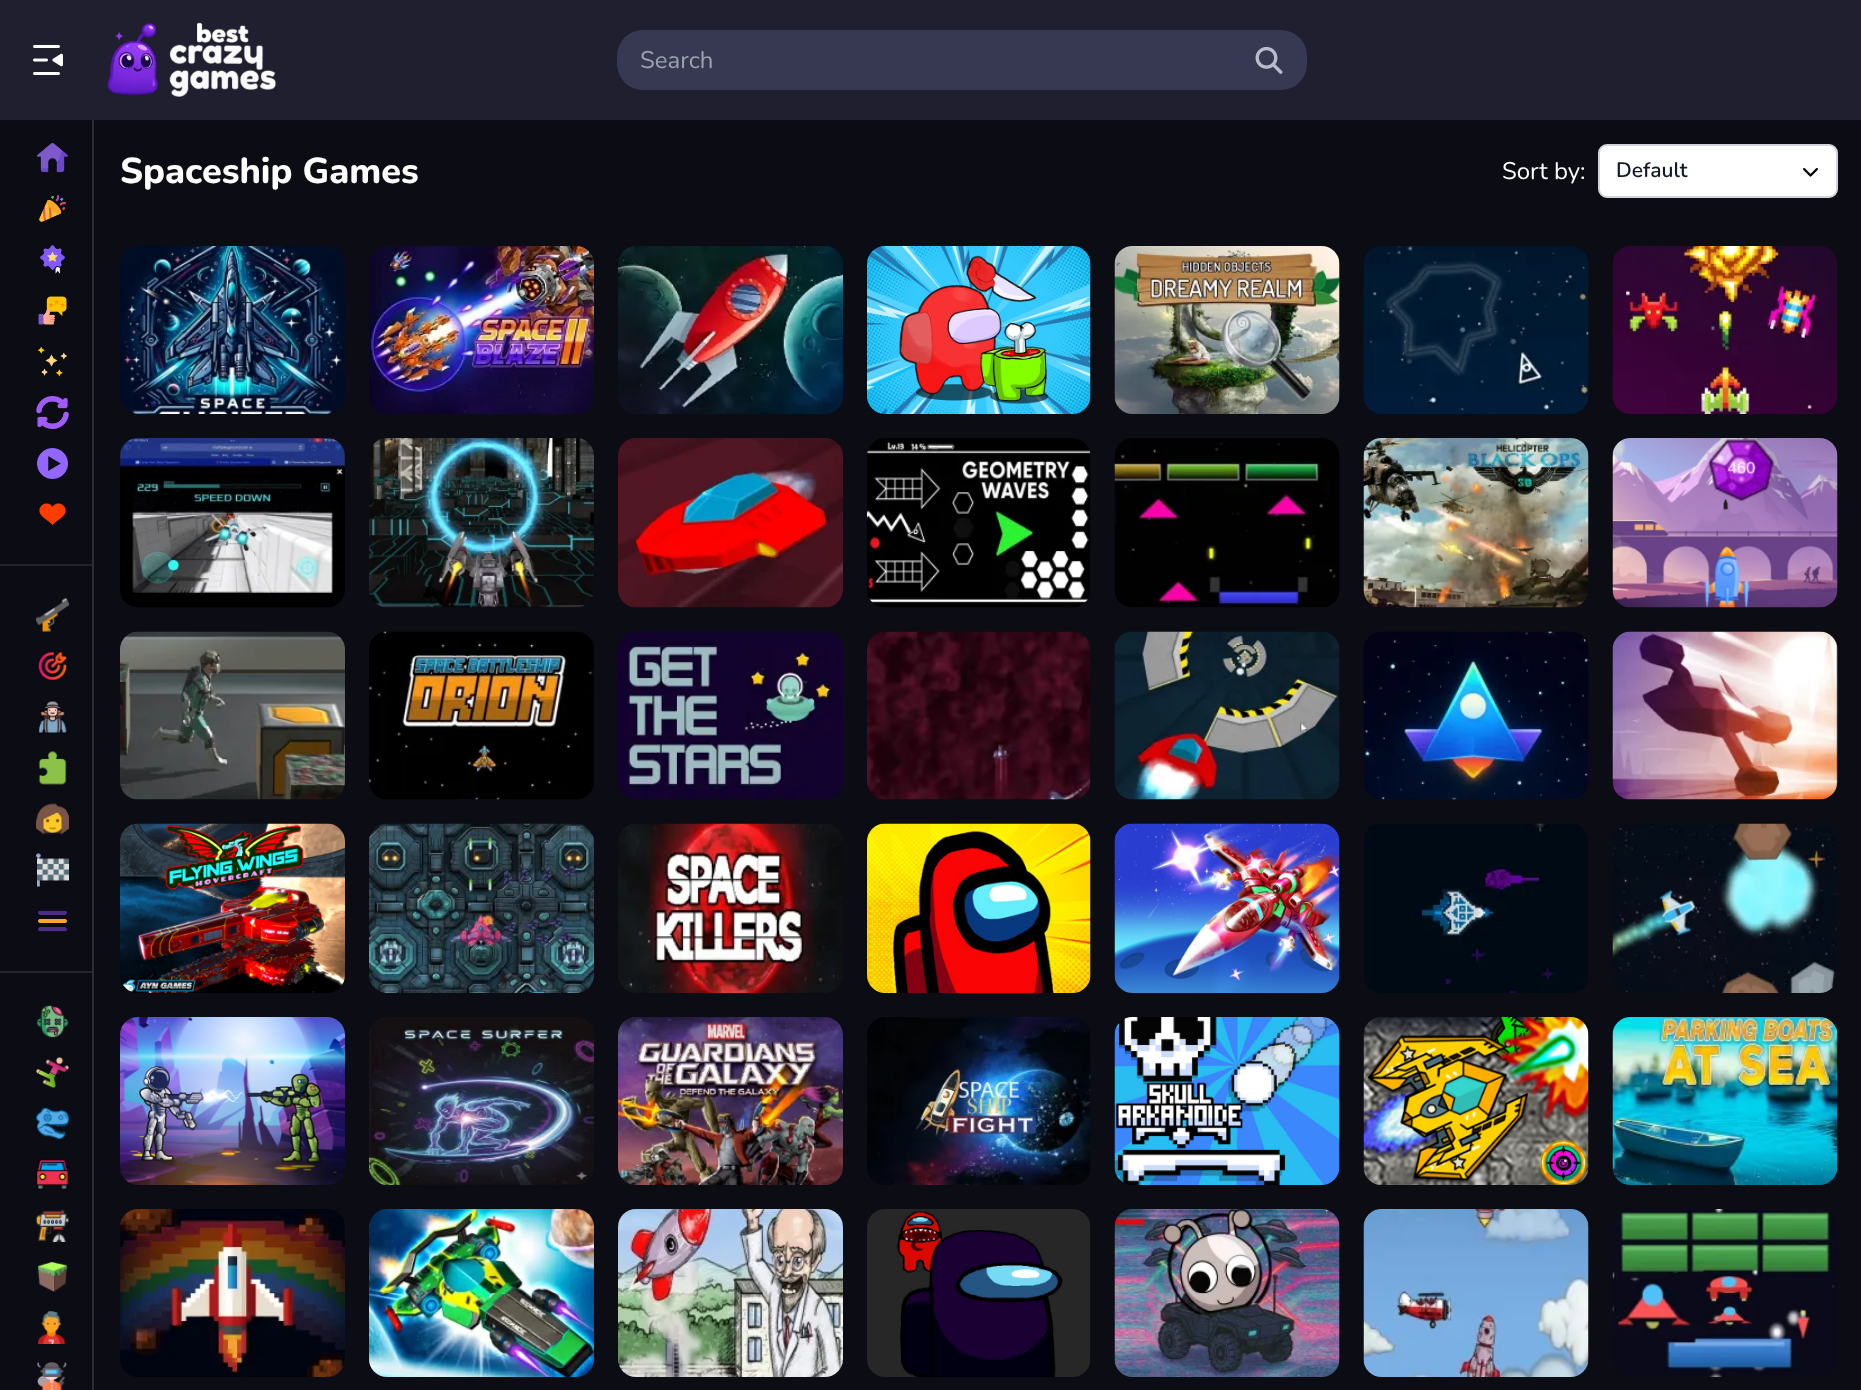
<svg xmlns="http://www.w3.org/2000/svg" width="1861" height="1390">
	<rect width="100%" height="100%" fill="#0C0D14" />
	<rect x="0" y="0" width="1861" height="120" fill="#1F1F30" />
	<image x="33" y="45" width="30" height="30" href="assets/img1.png" />
	<image x="107" y="22" width="170" height="75" href="assets/img2.png" />
	<rect x="617" y="30" width="690" height="60" rx="26" fill="#373952" />
	<text x="640" y="68" font-family="Nunito" font-size="24" fill="#9CA3AF">Search</text>
	<image x="1255" y="46" width="28" height="28" href="assets/img3.png" />
	<rect x="92" y="120" width="2" height="1270" fill="#2D2E3B" />
	<image x="37" y="143" width="31" height="30" href="assets/img4.png" />
	<image x="39" y="195" width="27" height="27" href="assets/img5.png" />
	<image x="40" y="245" width="25" height="29" href="assets/img6.png" />
	<image x="38" y="296" width="29" height="29" href="assets/img7.png" />
	<image x="37" y="346" width="31" height="31" href="assets/img8.png" />
	<image x="36" y="396" width="33" height="33" href="assets/img9.png" />
	<image x="37" y="448" width="31" height="31" href="assets/img10.png" />
	<image x="39" y="503" width="27" height="23" href="assets/img11.png" />
	<rect x="0" y="564" width="92" height="2" fill="#23242B" />
	<image x="36" y="598" width="33" height="34" href="assets/img12.png" />
	<image x="38" y="651" width="29" height="30" href="assets/img13.png" />
	<image x="38" y="700" width="29" height="34" href="assets/img14.png" />
	<image x="38" y="751" width="29" height="34" href="assets/img15.png" />
	<image x="36" y="803" width="33" height="32" href="assets/img16.png" />
	<image x="36" y="853" width="33" height="34" href="assets/img17.png" />
	<image x="38" y="910" width="29" height="22" href="assets/img18.png" />
	<rect x="0" y="971" width="92" height="2" fill="#23242B" />
	<image x="36" y="1005" width="33" height="33" href="assets/img19.png" />
	<image x="36" y="1057" width="33" height="31" href="assets/img20.png" />
	<image x="36" y="1107" width="33" height="33" href="assets/img21.png" />
	<image x="36" y="1159" width="33" height="31" href="assets/img22.png" />
	<image x="36" y="1209" width="33" height="33" href="assets/img23.png" />
	<image x="37" y="1261" width="31" height="31" href="assets/img24.png" />
	<image x="37" y="1311" width="29" height="33" href="assets/img25.png" />
	<image x="37" y="1362" width="30" height="28" href="assets/img26.png" />
	<text x="120" y="183" font-family="Nunito" font-size="36" font-weight="800" fill="#FFFFFF">Spaceship Games</text>
	<text x="1502" y="179" font-family="Nunito" font-size="24" fill="#FFFFFF">Sort by:</text>
	<rect x="1599" y="145" width="238" height="52" rx="8" fill="#FFFFFF" stroke="#D1D5DB" stroke-width="2" />
	<text x="1616" y="177" font-family="Nunito" font-size="21" font-weight="600" fill="#111827">Default</text>
	<image x="1803" y="168" width="15" height="9" href="assets/img27.png" />
	<image x="120" y="246" width="225" height="168" href="assets/img28.png" />
	<image x="369" y="246" width="225" height="168" href="assets/img29.png" />
	<image x="618" y="246" width="225" height="168" href="assets/img30.png" />
	<image x="867" y="246" width="224" height="168" href="assets/img31.png" />
	<image x="1114" y="246" width="226" height="168" href="assets/img32.png" />
	<image x="1363" y="246" width="226" height="168" href="assets/img33.png" />
	<image x="1612" y="246" width="226" height="168" href="assets/img34.png" />
	<image x="120" y="438" width="225" height="170" href="assets/img35.png" />
	<image x="369" y="438" width="225" height="170" href="assets/img36.png" />
	<image x="618" y="438" width="225" height="170" href="assets/img37.png" />
	<image x="867" y="438" width="224" height="170" href="assets/img38.png" />
	<image x="1114" y="438" width="226" height="170" href="assets/img39.png" />
	<image x="1363" y="438" width="226" height="170" href="assets/img40.png" />
	<image x="1612" y="438" width="226" height="170" href="assets/img41.png" />
	<image x="120" y="631" width="225" height="169" href="assets/img42.png" />
	<image x="369" y="631" width="225" height="169" href="assets/img43.png" />
	<image x="618" y="631" width="225" height="169" href="assets/img44.png" />
	<image x="867" y="631" width="224" height="169" href="assets/img45.png" />
	<image x="1114" y="631" width="226" height="169" href="assets/img46.png" />
	<image x="1363" y="631" width="226" height="169" href="assets/img47.png" />
	<image x="1612" y="631" width="226" height="169" href="assets/img48.png" />
	<image x="120" y="823" width="225" height="170" href="assets/img49.png" />
	<image x="369" y="823" width="225" height="170" href="assets/img50.png" />
	<image x="618" y="823" width="225" height="170" href="assets/img51.png" />
	<image x="867" y="823" width="224" height="170" href="assets/img52.png" />
	<image x="1114" y="823" width="226" height="170" href="assets/img53.png" />
	<image x="1364" y="823" width="224" height="170" href="assets/img54.png" />
	<image x="1612" y="823" width="225" height="170" href="assets/img55.png" />
	<image x="120" y="1017" width="225" height="168" href="assets/img56.png" />
	<image x="369" y="1017" width="225" height="168" href="assets/img57.png" />
	<image x="618" y="1017" width="225" height="168" href="assets/img58.png" />
	<image x="867" y="1017" width="224" height="168" href="assets/img59.png" />
	<image x="1114" y="1017" width="226" height="168" href="assets/img60.png" />
	<image x="1363" y="1017" width="226" height="168" href="assets/img61.png" />
	<image x="1612" y="1017" width="226" height="168" href="assets/img62.png" />
	<image x="120" y="1209" width="225" height="168" href="assets/img63.png" />
	<image x="369" y="1209" width="225" height="168" href="assets/img64.png" />
	<image x="618" y="1209" width="225" height="168" href="assets/img65.png" />
	<image x="867" y="1209" width="224" height="168" href="assets/img66.png" />
	<image x="1114" y="1209" width="226" height="168" href="assets/img67.png" />
	<image x="1363" y="1209" width="226" height="168" href="assets/img68.png" />
	<image x="1612" y="1209" width="225" height="168" href="assets/img69.png" />
</svg>
